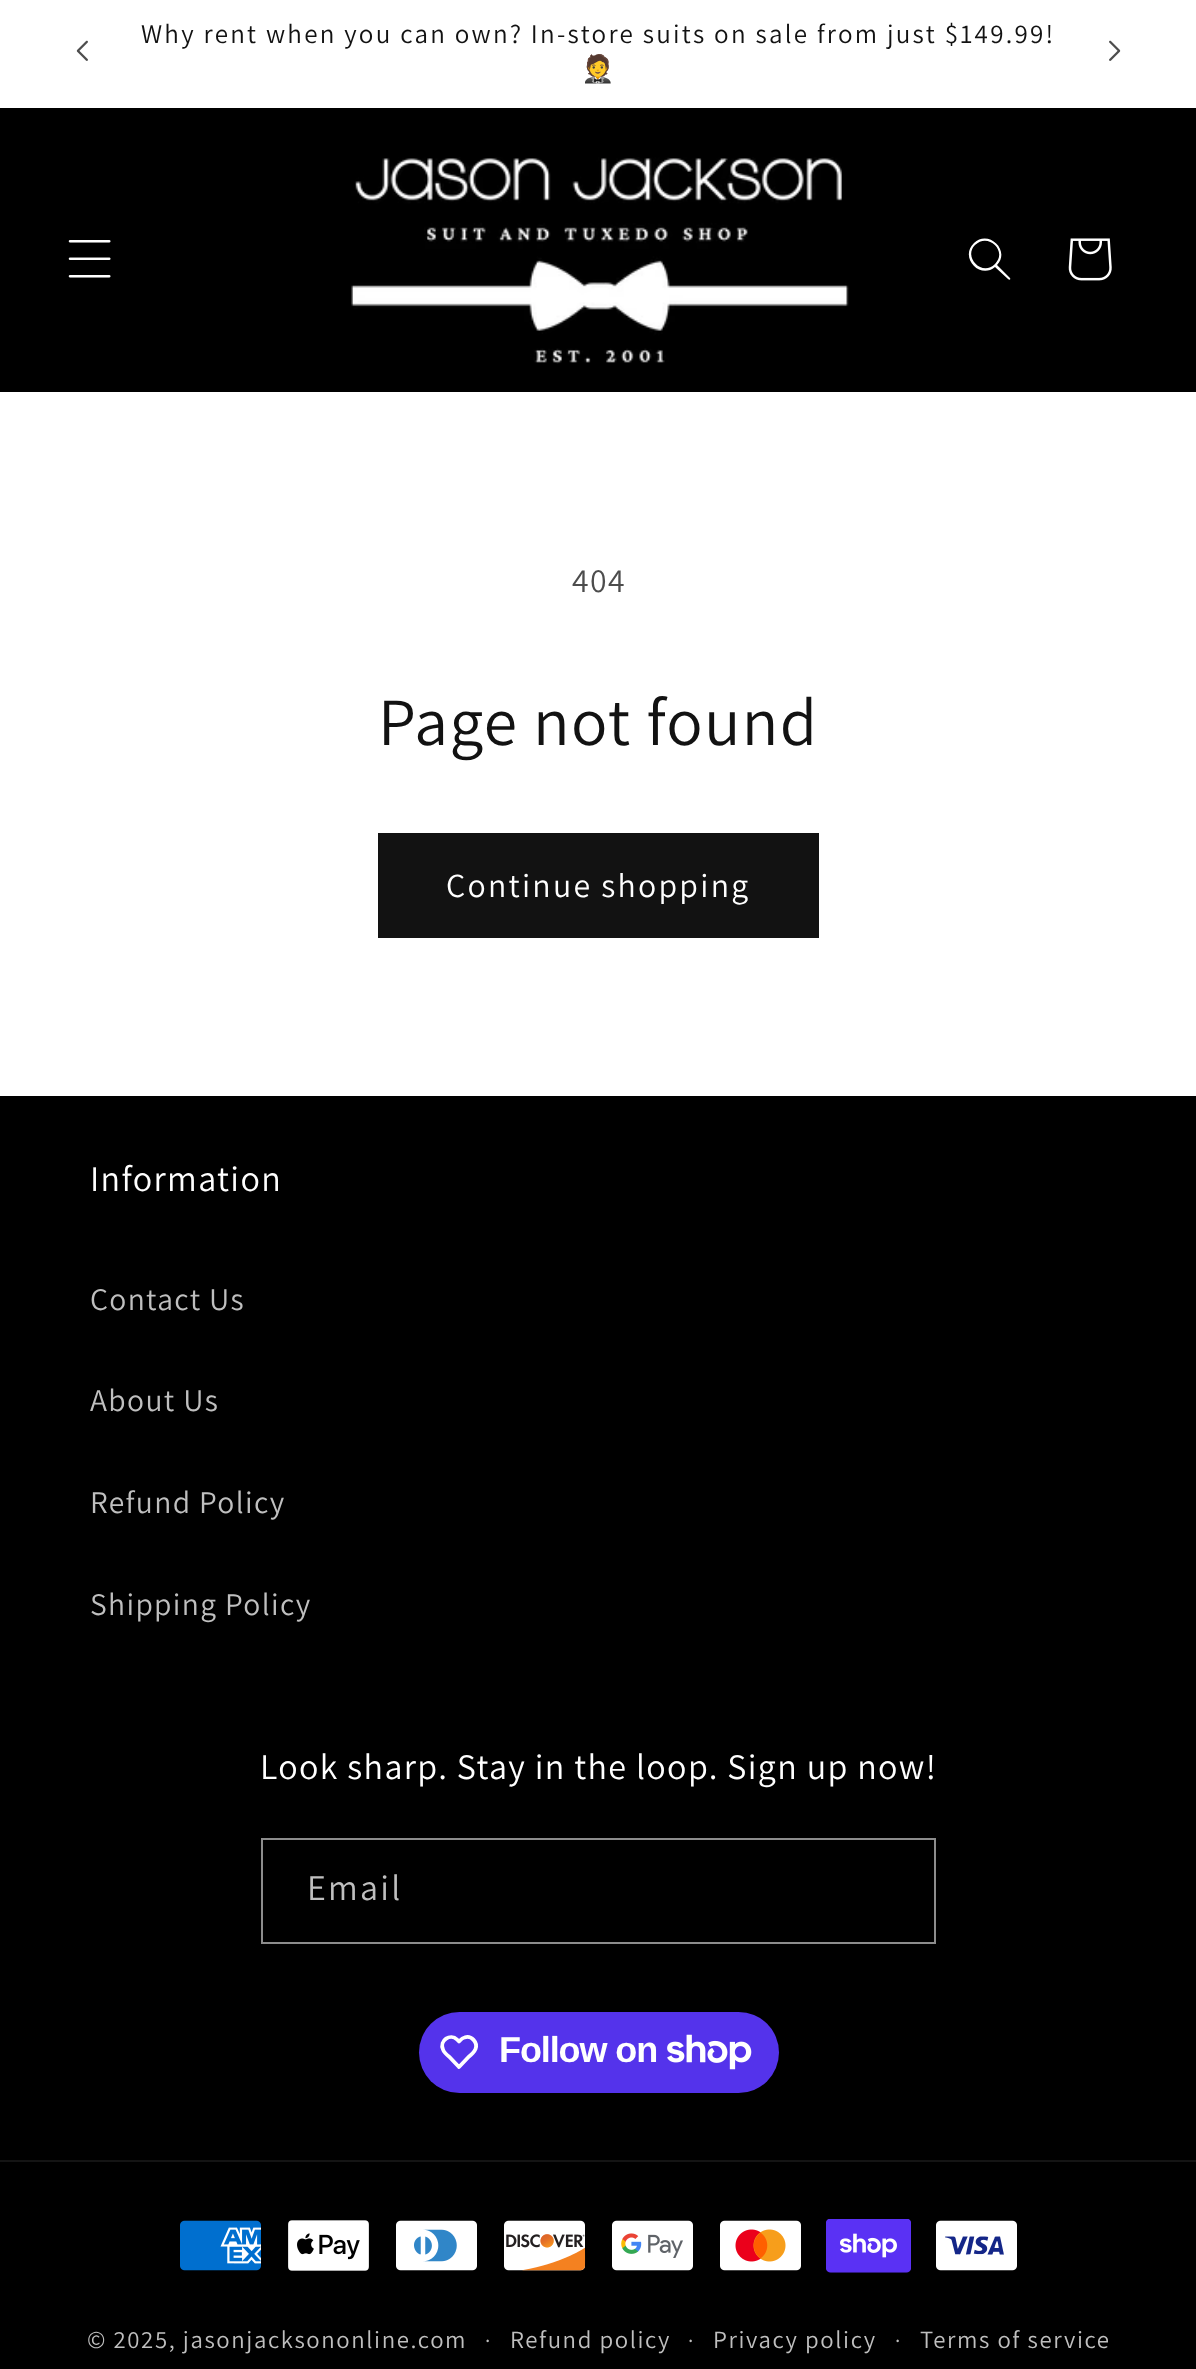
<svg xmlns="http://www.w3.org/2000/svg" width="1196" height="2369">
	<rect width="100%" height="100%" fill="#FFFFFF" />
	<image x="76" y="40" width="12" height="21" href="assets/img1.png" />
	<text x="141" y="43" font-family="Assistant" font-size="27" letter-spacing="2.25" fill="#121212">Why rent when you can own? In-store suits on sale from just $149.99!</text>
	<text x="581" y="78" font-family="Noto Color Emoji" font-size="27" letter-spacing="2.25" fill="#121212">🤵</text>
	<image x="1109" y="40" width="12" height="21" href="assets/img2.png" />
	<rect x="0" y="108" width="1196" height="284" fill="#000000" />
	<image x="68" y="240" width="43" height="38" href="assets/img3.png" />
	<image x="351" y="157" width="498" height="207" href="assets/img4.png" />
	<path d="M995 264C982 277 963 257 975 245C988 232 1008 251 995 264M995 267C980 280 959 257 974 243C988 229 1011 250 997 265L1010 278C1011 280 1009 280 1008 279Z" fill="#FFFFFF" fill-rule="evenodd" />
	<image x="1068" y="238" width="44" height="43" href="assets/img5.png" />
	<text x="572" y="592" font-family="Assistant" font-size="33.75" letter-spacing="1.35" fill="#4D4D4D">404</text>
	<text x="378" y="745" font-family="Assistant" font-size="67.5" letter-spacing="1.35" fill="#121212">Page not found</text>
	<rect x="378" y="833" width="441" height="105" fill="#121212" />
	<text x="446" y="897" font-family="Assistant" font-size="33.75" letter-spacing="2.25" fill="#FFFFFF">Continue shopping</text>
	<rect x="0" y="1096" width="1196" height="1273" fill="#000000" />
	<text x="90" y="1191" font-family="Assistant" font-size="36" letter-spacing="1.35" fill="#FFFFFF">Information</text>
	<g font-family="Assistant" font-size="31.5" letter-spacing="1.35" fill="#BFBFBF">
		<text x="90" y="1310">Contact Us</text>
		<text x="90" y="1411">About Us</text>
		<text x="90" y="1513">Refund Policy</text>
		<text x="90" y="1615">Shipping Policy</text>
	</g>
	<text x="260" y="1779" font-family="Assistant" font-size="36" letter-spacing="1.35" fill="#FFFFFF">Look sharp. Stay in the loop. Sign up now!</text>
	<rect x="262" y="1839" width="673" height="104" fill="none" stroke="#8C8C8C" stroke-width="2" />
	<text x="307" y="1900" font-family="Assistant" font-size="36" letter-spacing="2.25" fill="#BFBFBF">Email</text>
	<rect x="419" y="2012" width="360" height="81" rx="40.5" fill="#5433EB" />
	<path d="M457 2039.5L459 2041.5C460.5 2040 462 2038 464.5 2037.5C471.5 2035 478 2042.5 475.5 2049C474 2052.5 471 2055 468.5 2057L459 2067L449.5 2057C447 2055 444 2052.5 443 2049.5C439 2040.5 450.5 2033 457 2039.5Z" fill="none" stroke="#FFFFFF" stroke-width="3.8" stroke-linejoin="round" />
	<text x="499" y="2062" font-family="Liberation Sans" font-size="36" font-weight="700" letter-spacing="-1.1" fill="#FFFFFF">Follow on</text>
	<image x="667" y="2034" width="85" height="36" href="assets/img6.png" />
	<rect x="0" y="2160" width="1196" height="2" fill="#141414" />
	<image x="180" y="2220" width="81" height="51" href="assets/img7.png" />
	<image x="288" y="2220" width="81" height="51" href="assets/img8.png" />
	<image x="396" y="2220" width="81" height="51" href="assets/img9.png" />
	<image x="504" y="2220" width="82" height="51" href="assets/img10.png" />
	<image x="612" y="2220" width="81" height="51" href="assets/img11.png" />
	<image x="720" y="2220" width="81" height="51" href="assets/img12.png" />
	<image x="826" y="2219" width="85" height="54" href="assets/img13.png" />
	<image x="936" y="2220" width="81" height="51" href="assets/img14.png" />
	<text x="87" y="2348" font-family="Assistant" font-size="24.75" letter-spacing="1.6" fill="#BFBFBF">© 2025, jasonjacksononline.com</text>
	<text x="485" y="2348" font-family="Assistant" font-size="22" letter-spacing="1.6" fill="#BFBFBF">·</text>
	<text x="510" y="2348" font-family="Assistant" font-size="24.75" letter-spacing="1.6" fill="#BFBFBF">Refund policy</text>
	<text x="688" y="2348" font-family="Assistant" font-size="22" letter-spacing="1.6" fill="#BFBFBF">·</text>
	<text x="713" y="2348" font-family="Assistant" font-size="24.75" letter-spacing="1.6" fill="#BFBFBF">Privacy policy</text>
	<text x="895" y="2348" font-family="Assistant" font-size="22" letter-spacing="1.6" fill="#BFBFBF">·</text>
	<text x="920" y="2348" font-family="Assistant" font-size="24.75" letter-spacing="1.6" fill="#BFBFBF">Terms of service</text>
</svg>
